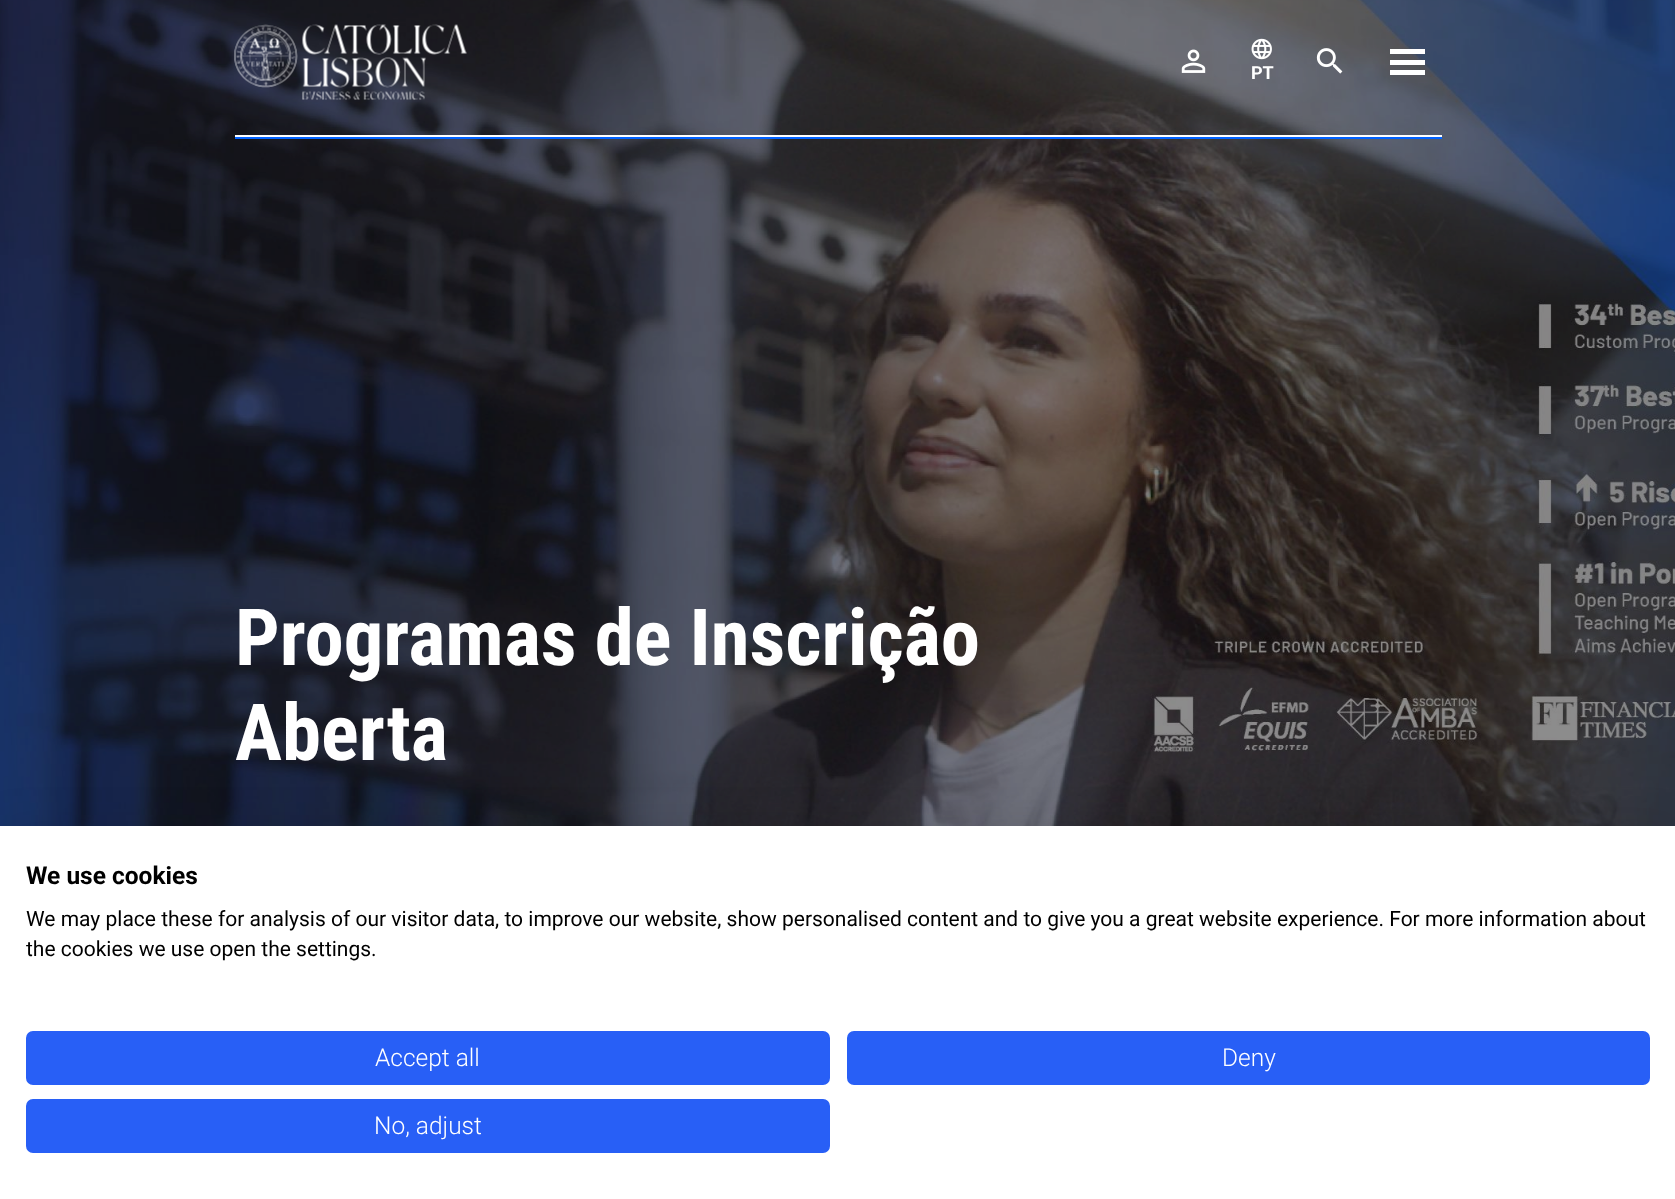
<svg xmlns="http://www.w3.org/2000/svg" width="1675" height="1199">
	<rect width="100%" height="100%" fill="#FFFFFF" />
	<image x="0" y="0" width="1675" height="826" href="assets/img5.png" />
	<image x="234" y="24" width="233" height="76" href="assets/img1.png" />
	<image x="1181" y="49" width="25" height="24" href="assets/img2.png" />
	<image x="1251" y="38" width="21" height="22" href="assets/img3.png" />
	<text x="1251" y="79" font-family="Roboto" font-size="18" font-weight="700" fill="#FFFFFF">PT</text>
	<image x="1316" y="48" width="27" height="26" href="assets/img4.png" />
	<rect x="1390" y="60" width="35" height="5" fill="#FFFFFF" />
	<rect x="1390" y="49" width="35" height="5" fill="#FFFFFF" />
	<rect x="1390" y="70" width="35" height="5" fill="#FFFFFF" />
	<rect x="235" y="135" width="1207" height="2" fill="#FFFFFF" />
	<rect x="235" y="137" width="1207" height="2" fill="#0061FF" />
	<g font-family="Roboto Condensed" font-size="78.75" font-weight="700" fill="#FFFFFF">
		<text x="235" y="665">Programas de Inscrição</text>
		<text x="235" y="760">Aberta</text>
	</g>
	<rect x="0" y="826" width="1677" height="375" fill="#000000" fill-opacity="0.1" filter="blur(21px)" />
	<rect x="0" y="826" width="1675" height="373" fill="#FFFFFF" />
	<text x="26" y="884" font-family="Roboto" font-size="24.5" font-weight="700" fill="#000000">We use cookies</text>
	<g font-family="Roboto" font-size="21" fill="#000000">
		<text x="26" y="926">We may place these for analysis of our visitor data, to improve our website, show personalised content and to give you a great website experience. For more information about</text>
		<text x="26" y="956">the cookies we use open the settings.</text>
	</g>
	<rect x="27" y="1032" width="802" height="52" rx="6" fill="#285FF6" stroke="#285FF6" stroke-width="2" />
	<text x="375" y="1066" font-family="Roboto" font-size="24.5" font-weight="300" fill="#FFFFFF">Accept all</text>
	<rect x="848" y="1032" width="801" height="52" rx="6" fill="#285FF6" stroke="#285FF6" stroke-width="2" />
	<text x="1222" y="1066" font-family="Roboto" font-size="24.5" font-weight="300" fill="#FFFFFF">Deny</text>
	<rect x="27" y="1100" width="802" height="52" rx="6" fill="#285FF6" stroke="#285FF6" stroke-width="2" />
	<text x="374" y="1134" font-family="Roboto" font-size="24.5" font-weight="300" fill="#FFFFFF">No, adjust</text>
</svg>
